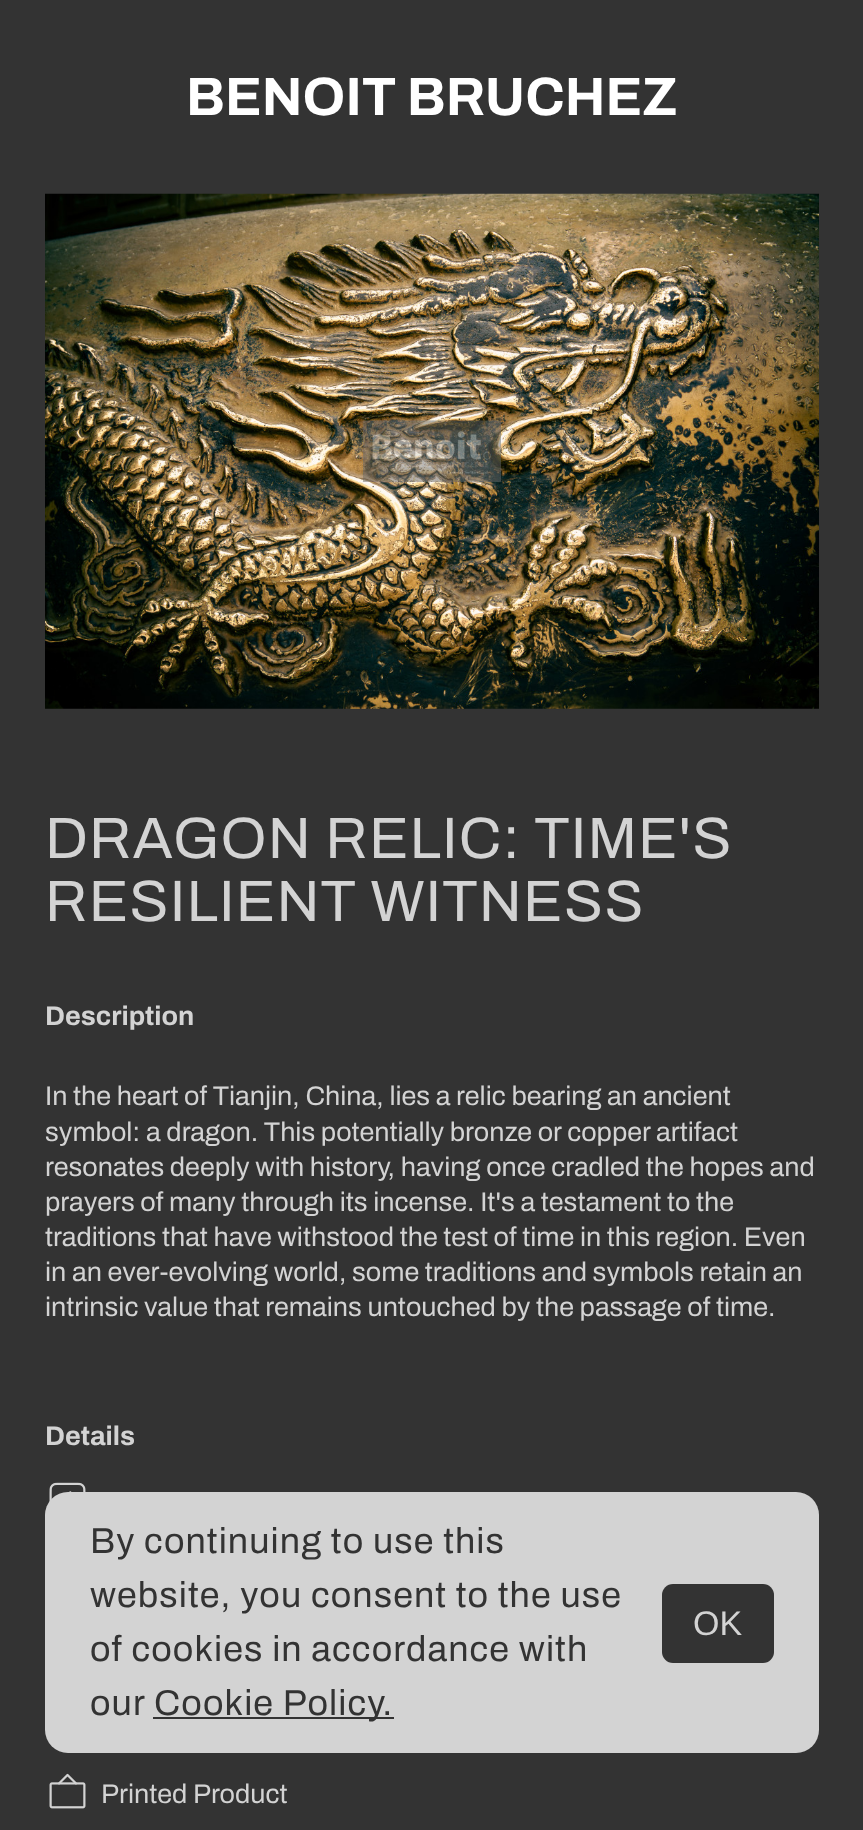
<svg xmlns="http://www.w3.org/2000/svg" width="863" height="1830">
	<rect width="100%" height="100%" fill="#333333" />
	<text x="186" y="115" font-family="Archivo" font-size="54" font-weight="700" fill="#FFFFFF">BENOIT BRUCHEZ</text>
	<image x="45" y="193" width="774" height="516" href="assets/img1.png" />
	<g font-family="Archivo" font-size="58.5" letter-spacing="1.1" fill="#D3D3D3">
		<text x="45" y="858">DRAGON RELIC: TIME'S</text>
		<text x="45" y="921">RESILIENT WITNESS</text>
	</g>
	<text x="45" y="1025" font-family="Archivo" font-size="27" font-weight="700" fill="#D3D3D3">Description</text>
	<g font-family="Archivo" font-size="27" fill="#D3D3D3">
		<text x="45" y="1105">In the heart of Tianjin, China, lies a relic bearing an ancient</text>
		<text x="45" y="1141">symbol: a dragon. This potentially bronze or copper artifact</text>
		<text x="45" y="1176">resonates deeply with history, having once cradled the hopes and</text>
		<text x="45" y="1211">prayers of many through its incense. It's a testament to the</text>
		<text x="45" y="1246">traditions that have withstood the test of time in this region. Even</text>
		<text x="45" y="1281">in an ever-evolving world, some traditions and symbols retain an</text>
		<text x="45" y="1316">intrinsic value that remains untouched by the passage of time.</text>
	</g>
	<text x="45" y="1445" font-family="Archivo" font-size="27" font-weight="700" fill="#D3D3D3">Details</text>
	<image x="49" y="1482" width="37" height="20" href="assets/img2.png" />
	<image x="49" y="1773" width="37" height="36" href="assets/img3.png" />
	<text x="101" y="1803" font-family="Archivo" font-size="27" fill="#D3D3D3">Printed Product</text>
	<rect x="45" y="1492" width="774" height="261" rx="23" fill="#D3D3D3" />
	<g font-family="Archivo" font-size="36" letter-spacing="1.1" fill="#333333">
		<text x="90" y="1553">By continuing to use this</text>
		<text x="90" y="1607">website, you consent to the use</text>
		<text x="90" y="1661">of cookies in accordance with</text>
		<text x="90" y="1715">our</text>
	</g>
	<rect x="153" y="1717" width="241" height="2" fill="#333333" />
	<text x="154" y="1715" font-family="Archivo" font-size="36" letter-spacing="1.1" fill="#333333">Cookie Policy.</text>
	<rect x="662" y="1584" width="112" height="79" rx="11" fill="#333333" />
	<text x="693" y="1635" font-family="Liberation Sans" font-size="34" fill="#D3D3D3">OK</text>
</svg>
